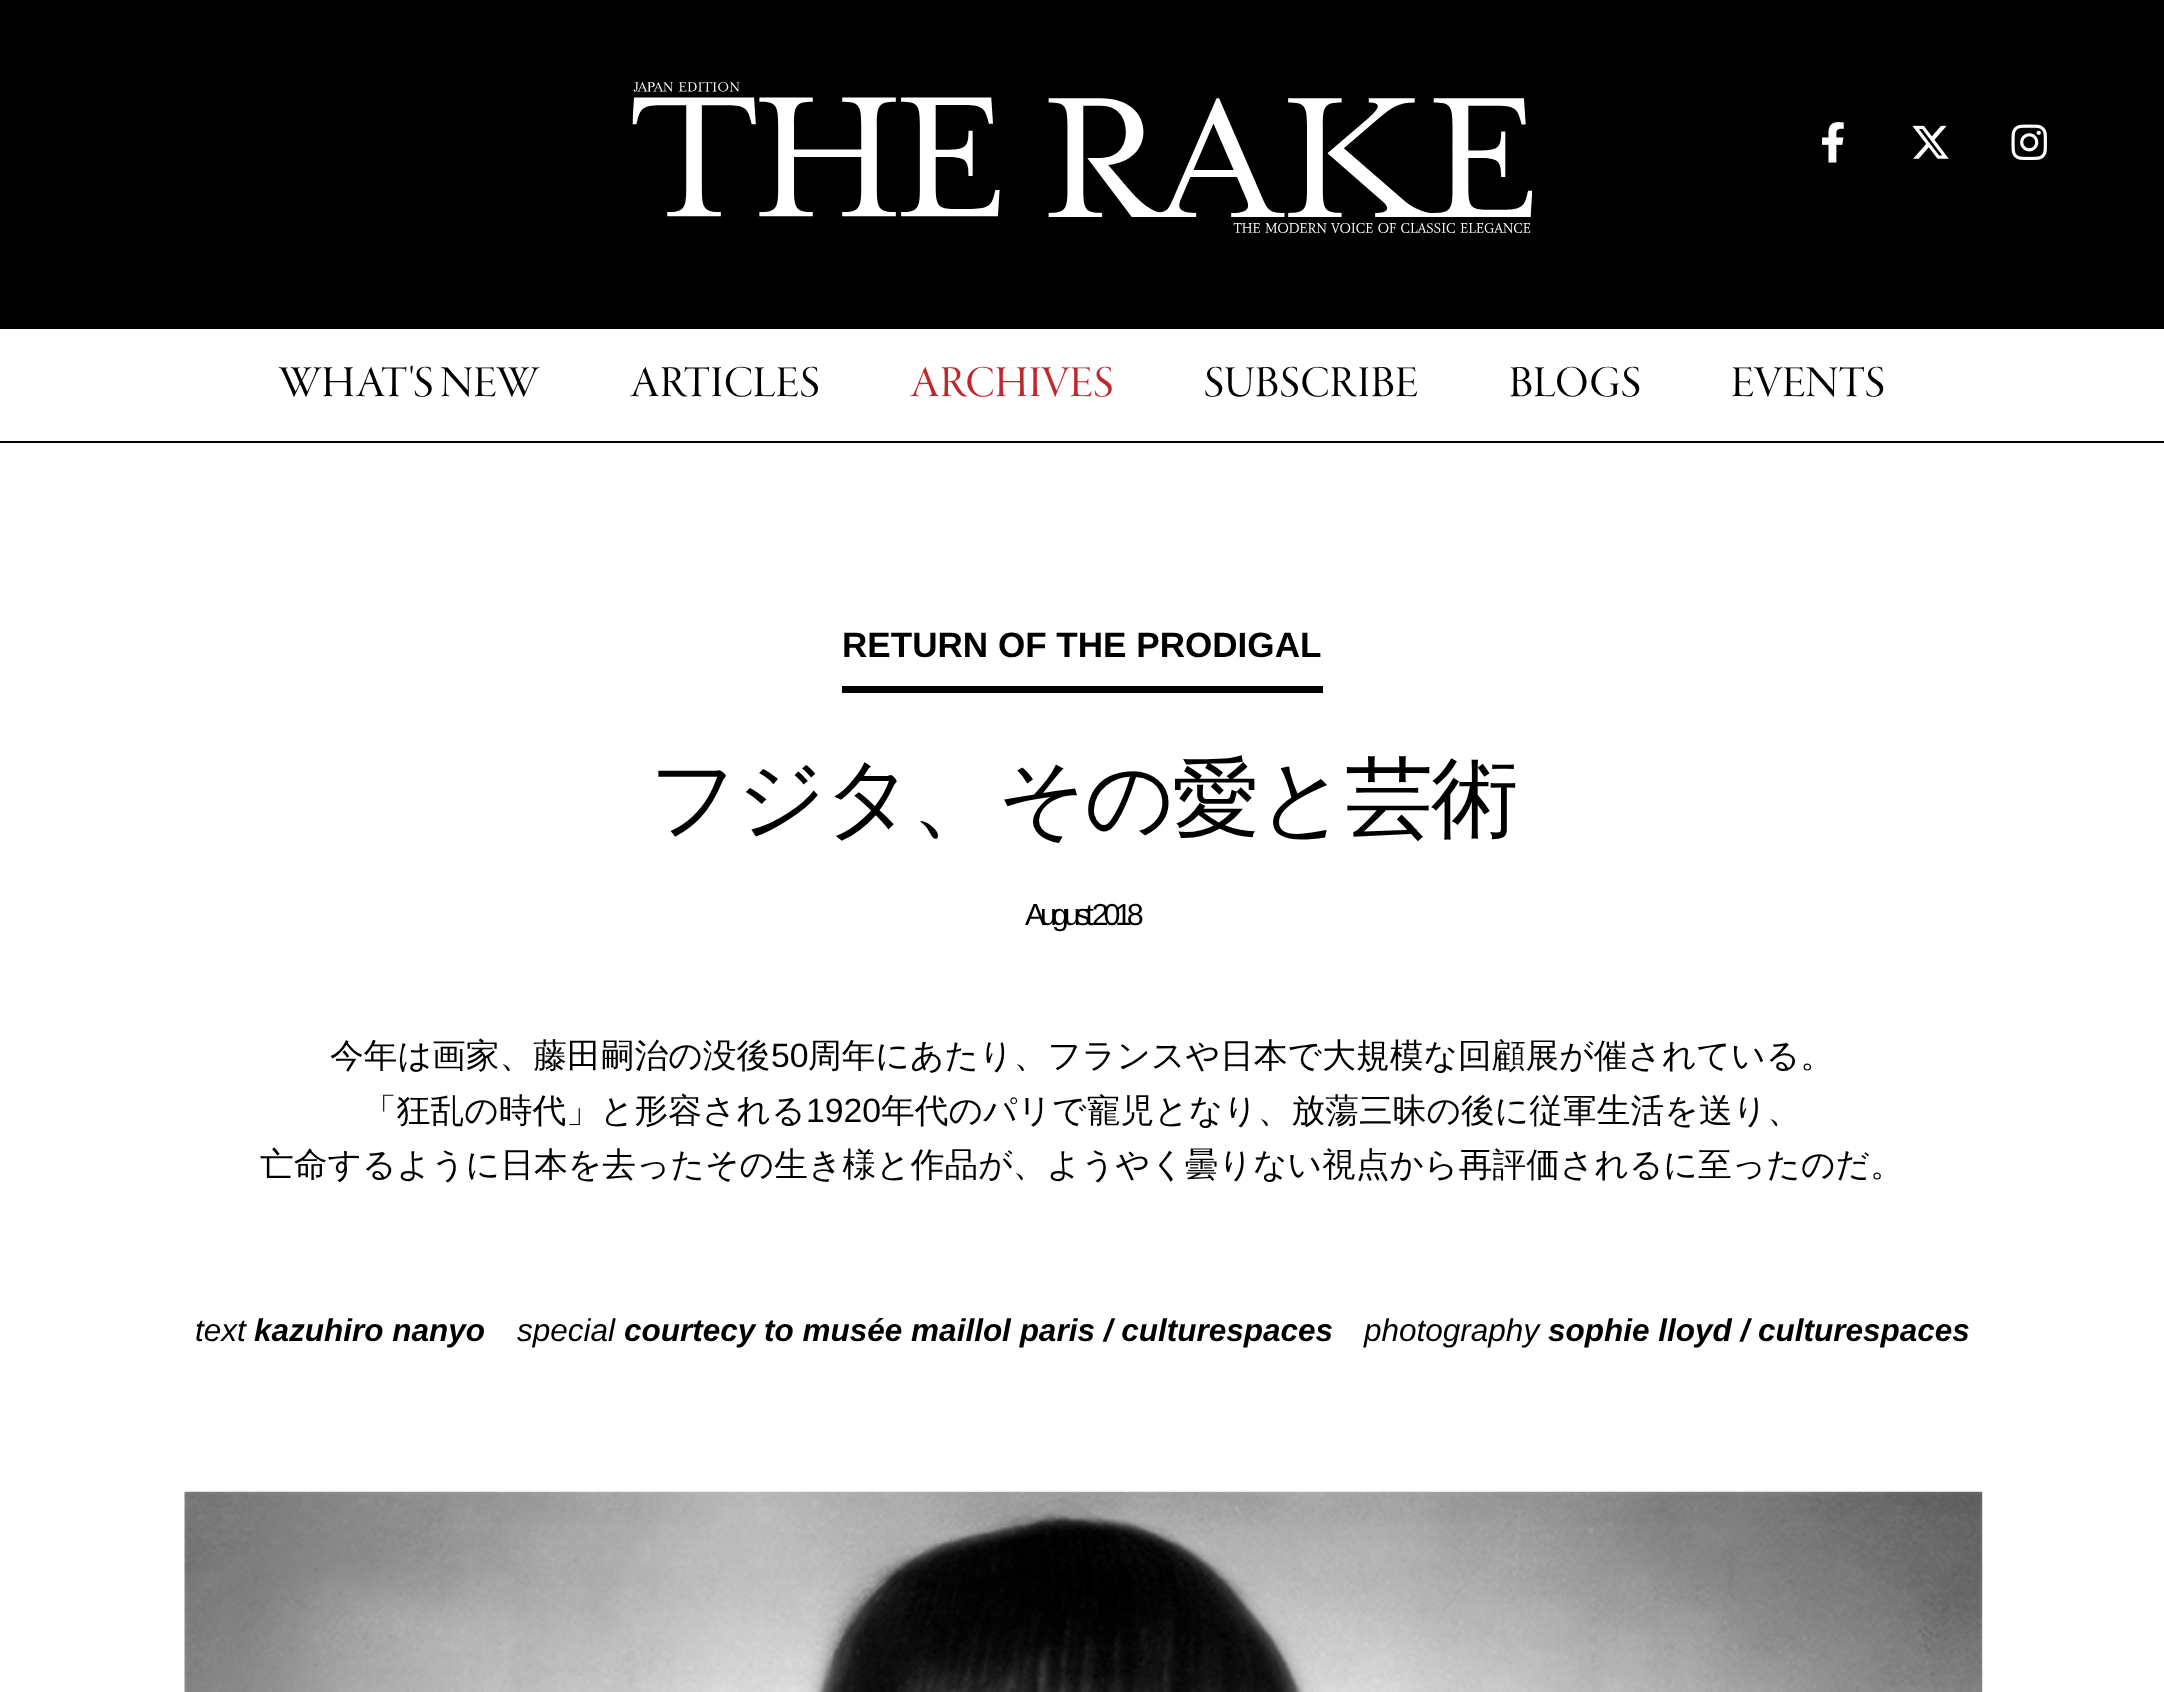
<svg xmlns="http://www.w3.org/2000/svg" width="2164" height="1692">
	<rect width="100%" height="100%" fill="#FFFFFF" />
	<rect x="0" y="0" width="2164" height="329" fill="#000000" />
	<image x="632" y="82" width="900" height="151" href="assets/img1.png" />
	<image x="1822" y="122" width="22" height="41" href="assets/img2.png" />
	<image x="1912" y="125" width="37" height="34" href="assets/img3.png" />
	<image x="2011" y="124" width="36" height="36" href="assets/img4.png" />
	<rect x="0" y="441" width="2164" height="2" fill="#000000" />
	<g font-family="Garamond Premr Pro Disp" font-size="45.5" fill="#000000">
		<text x="279" y="396">WHAT'S NEW</text>
		<text x="630" y="396">ARTICLES</text>
	</g>
	<text x="910" y="396" font-family="Garamond Premr Pro Disp" font-size="45.5" fill="#C1272D">ARCHIVES</text>
	<g font-family="Garamond Premr Pro Disp" font-size="45.5" fill="#000000">
		<text x="1204" y="396">SUBSCRIBE</text>
		<text x="1509" y="396">BLOGS</text>
		<text x="1731" y="396">EVENTS</text>
	</g>
	<rect x="842" y="686" width="481" height="7" fill="#000000" />
	<text x="842" y="657" font-family="Liberation Sans" font-size="35.1" font-weight="700" fill="#000000">RETURN OF THE PRODIGAL</text>
	<text x="649" y="828" font-family="WenQuanYi Zen Hei" font-size="87.75" font-weight="500" letter-spacing="-2.25" fill="#000000">フジタ、その愛と芸術</text>
	<text x="1025" y="925" font-family="Liberation Sans" font-size="30.5" letter-spacing="-5.25" fill="#000000">August 2018</text>
	<text x="330" y="1067" font-family="WenQuanYi Zen Hei" font-size="33.75" font-weight="500" fill="#000000">今年は画家、藤田嗣治の没後</text>
	<text x="771" y="1067" font-family="Liberation Sans" font-size="33.75" fill="#000000">50</text>
	<g font-family="WenQuanYi Zen Hei" font-size="33.75" font-weight="500" fill="#000000">
		<text x="808" y="1067">周年にあたり、フランスや日本で大規模な回顧展が催されている。</text>
		<text x="363" y="1122">「狂乱の時代」と形容される</text>
	</g>
	<text x="806" y="1122" font-family="Liberation Sans" font-size="33.75" fill="#000000">1920</text>
	<g font-family="WenQuanYi Zen Hei" font-size="33.75" font-weight="500" fill="#000000">
		<text x="881" y="1122">年代のパリで寵児となり、放蕩三昧の後に従軍生活を送り、</text>
		<text x="260" y="1176">亡命するように日本を去ったその生き様と作品が、ようやく曇りない視点から再評価されるに至ったのだ。</text>
	</g>
	<text x="195" y="1341" font-family="Liberation Sans" font-size="31.5" font-style="italic" fill="#000000">text</text>
	<text x="254" y="1341" font-family="Liberation Sans" font-size="31.5" font-weight="700" font-style="italic" fill="#000000">kazuhiro nanyo</text>
	<text x="517" y="1341" font-family="Liberation Sans" font-size="31.5" font-style="italic" fill="#000000">special</text>
	<text x="624" y="1341" font-family="Liberation Sans" font-size="31.5" font-weight="700" font-style="italic" fill="#000000">courtecy to musée maillol paris / culturespaces</text>
	<text x="1364" y="1341" font-family="Liberation Sans" font-size="31.5" font-style="italic" fill="#000000">photography</text>
	<text x="1548" y="1341" font-family="Liberation Sans" font-size="31.5" font-weight="700" font-style="italic" fill="#000000">sophie lloyd / culturespaces</text>
	<image x="184" y="1491" width="1799" height="201" href="assets/img5.png" />
</svg>
